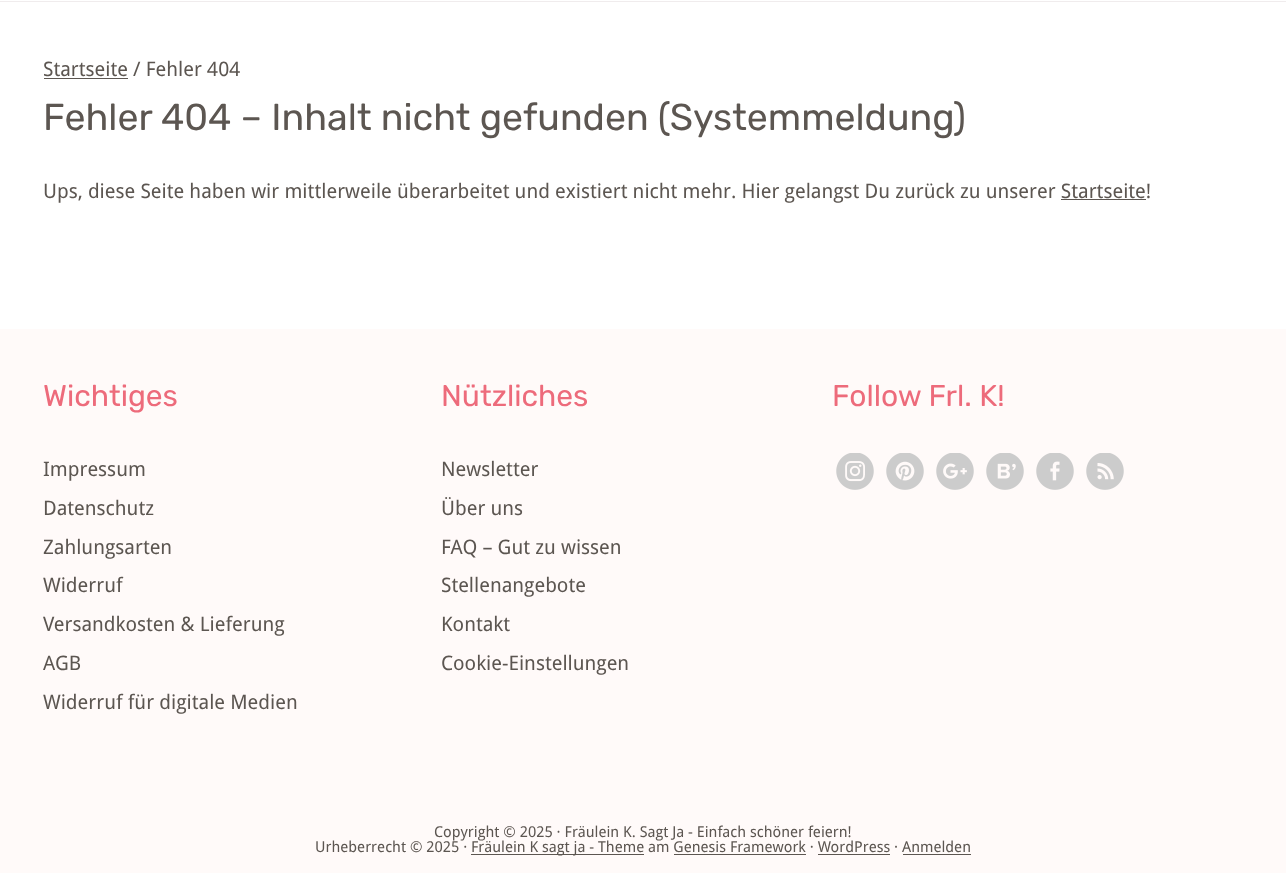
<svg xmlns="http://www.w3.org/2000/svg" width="1286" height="873">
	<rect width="100%" height="100%" fill="#FFFFFF" />
	<rect x="0" y="1" width="1286" height="1" fill="#F0ECED" />
	<text x="43" y="76" font-family="Droid Sans" font-size="20" fill="#5C5651">Startseite / Fehler 404</text>
	<rect x="44" y="78" width="84" height="1" fill="#5C5651" />
	<text x="43" y="130" font-family="Rubik" font-size="37.5" fill="#5C5651">Fehler 404 – Inhalt nicht gefunden (Systemmeldung)</text>
	<text x="43" y="198" font-family="Droid Sans" font-size="20" fill="#5C5651">Ups, diese Seite haben wir mittlerweile überarbeitet und existiert nicht mehr. Hier gelangst Du zurück zu unserer Startseite!</text>
	<rect x="1061" y="199" width="85" height="1" fill="#5C5651" />
	<rect x="0" y="329" width="1286" height="544" fill="#FFFAF9" />
	<text x="43" y="406" font-family="Rubik" font-size="30" fill="#ED6B7B">Wichtiges</text>
	<g font-family="Droid Sans" font-size="20" fill="#5C5651">
		<text x="43" y="476">Impressum</text>
		<text x="43" y="515">Datenschutz</text>
		<text x="43" y="554">Zahlungsarten</text>
		<text x="43" y="592">Widerruf</text>
		<text x="43" y="631">Versandkosten &amp; Lieferung</text>
		<text x="43" y="670">AGB</text>
		<text x="43" y="709">Widerruf für digitale Medien</text>
	</g>
	<text x="441" y="406" font-family="Rubik" font-size="30" fill="#ED6B7B">Nützliches</text>
	<g font-family="Droid Sans" font-size="20" fill="#5C5651">
		<text x="441" y="476">Newsletter</text>
		<text x="441" y="515">Über uns</text>
		<text x="441" y="554">FAQ – Gut zu wissen</text>
		<text x="441" y="592">Stellenangebote</text>
		<text x="441" y="631">Kontakt</text>
		<text x="441" y="670">Cookie-Einstellungen</text>
	</g>
	<text x="832" y="406" font-family="Rubik" font-size="30" fill="#ED6B7B">Follow Frl. K!</text>
	<image x="836" y="453" width="38" height="37" href="assets/img1.png" />
	<image x="886" y="453" width="38" height="37" href="assets/img2.png" />
	<image x="936" y="453" width="38" height="37" href="assets/img3.png" />
	<image x="986" y="453" width="38" height="37" href="assets/img4.png" />
	<image x="1036" y="453" width="38" height="37" href="assets/img5.png" />
	<image x="1086" y="453" width="38" height="37" href="assets/img6.png" />
	<g font-family="Droid Sans" font-size="15" fill="#5C5651">
		<text x="434" y="837">Copyright © 2025 · Fräulein K. Sagt Ja - Einfach schöner feiern!</text>
		<text x="315" y="852">Urheberrecht © 2025 ·</text>
	</g>
	<rect x="471" y="854" width="173" height="1" fill="#5C5651" />
	<text x="471" y="852" font-family="Droid Sans" font-size="15" fill="#5C5651">Fräulein K sagt ja - Theme am Genesis Framework · WordPress · Anmelden</text>
	<rect x="674" y="854" width="132" height="1" fill="#5C5651" />
	<rect x="818" y="854" width="72" height="1" fill="#5C5651" />
	<rect x="903" y="854" width="68" height="1" fill="#5C5651" />
</svg>
